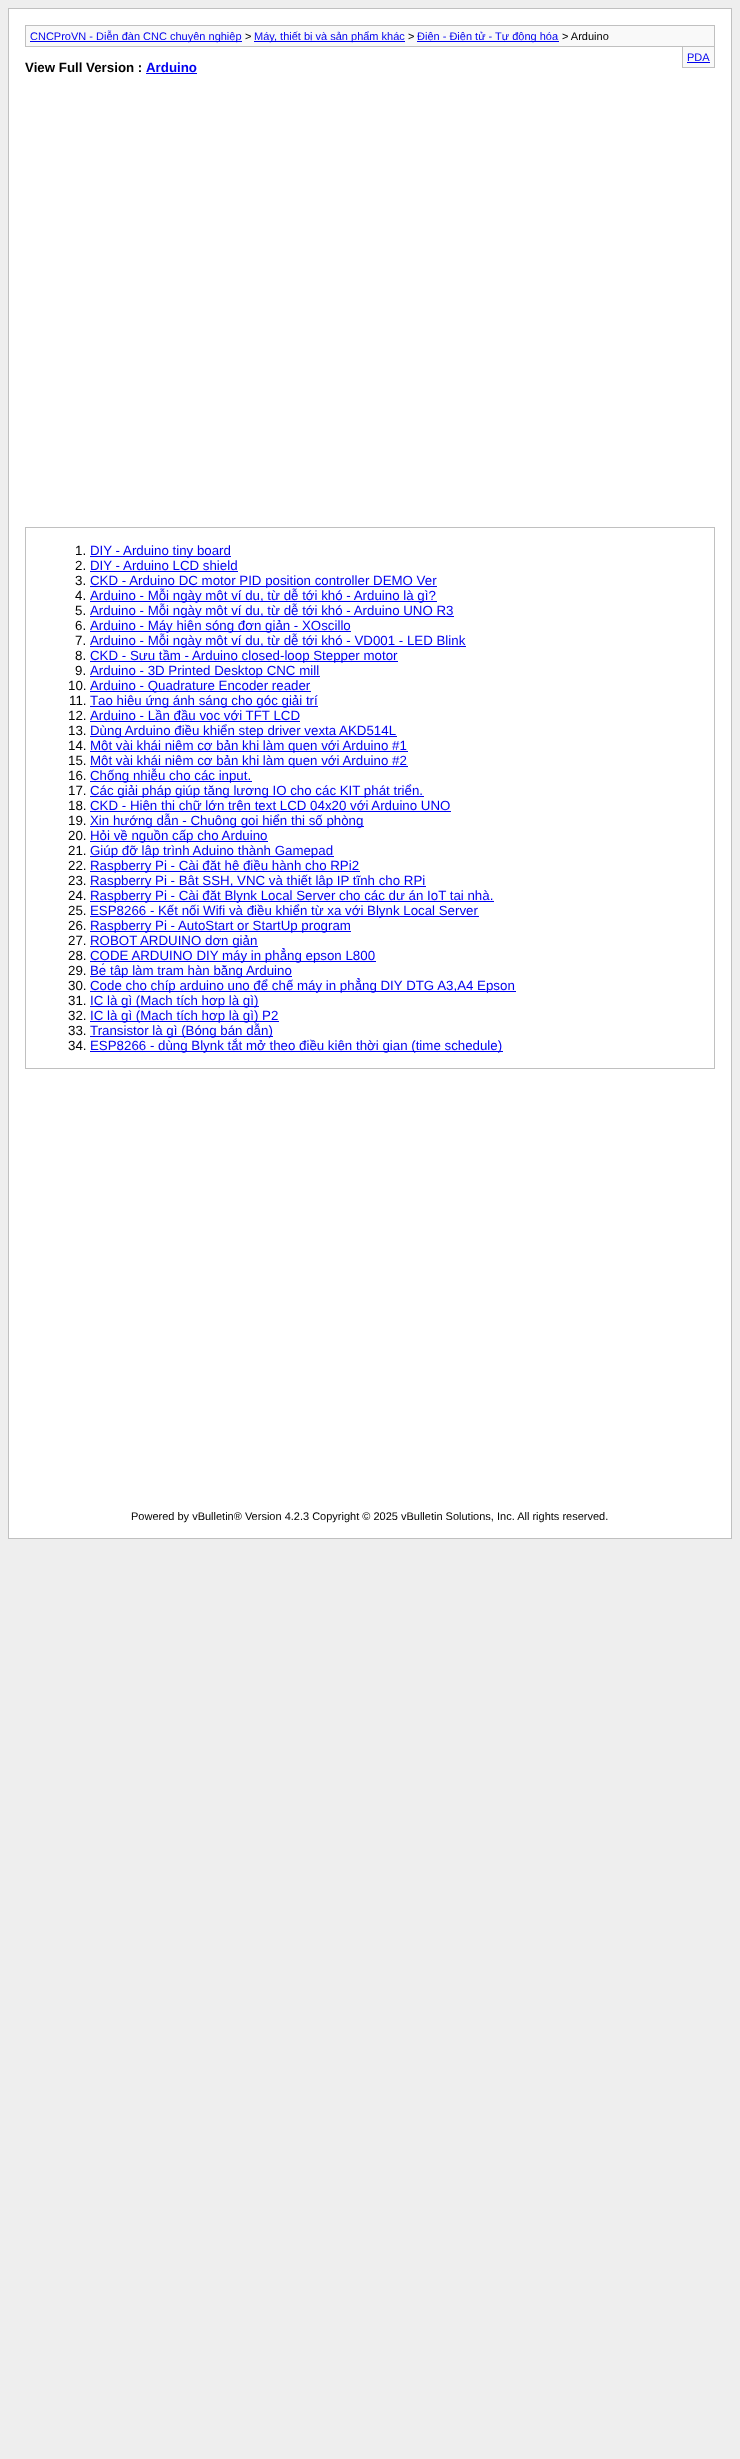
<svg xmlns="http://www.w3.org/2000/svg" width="740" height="2459">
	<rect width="100%" height="100%" fill="#EEEEEE" />
	<rect x="8.5" y="8.5" width="723" height="1530" fill="#FFFFFF" stroke="#C0C0C0" />
	<rect x="25.5" y="25.5" width="689" height="21" fill="#F9F9F9" stroke="#C0C0C0" />
	<rect x="30" y="41" width="212" height="1" fill="#0000EE" />
	<text x="30" y="40" font-family="Liberation Sans" font-size="11" fill="#0000EE">CNCProVN - Diễn đàn CNC chuyên nghiệp</text>
	<text x="245" y="40" font-family="Liberation Sans" font-size="11" fill="#000000">&gt;</text>
	<rect x="254" y="41" width="151" height="1" fill="#0000EE" />
	<text x="254" y="40" font-family="Liberation Sans" font-size="11" fill="#0000EE">Máy, thiết bị và sản phẩm khác</text>
	<text x="408" y="40" font-family="Liberation Sans" font-size="11" fill="#000000">&gt;</text>
	<rect x="417" y="41" width="142" height="1" fill="#0000EE" />
	<text x="417" y="40" font-family="Liberation Sans" font-size="11" fill="#0000EE">Điện - Điện tử - Tự động hóa</text>
	<text x="562" y="40" font-family="Liberation Sans" font-size="11" fill="#000000">&gt; Arduino</text>
	<rect x="683" y="47" width="31" height="20" fill="#F9F9F9" />
	<rect x="714" y="47" width="1" height="21" fill="#C0C0C0" />
	<rect x="682" y="67" width="33" height="1" fill="#C0C0C0" />
	<rect x="682" y="47" width="1" height="21" fill="#C0C0C0" />
	<text x="687" y="61" font-family="Liberation Sans" font-size="11" fill="#0000EE">PDA</text>
	<rect x="687" y="62" width="23" height="1" fill="#0000EE" />
	<text x="25" y="72" font-family="Liberation Sans" font-size="13.3" font-weight="700" fill="#000000">View Full Version :</text>
	<text x="146" y="72" font-family="Liberation Sans" font-size="13.3" font-weight="700" fill="#0000EE">Arduino</text>
	<rect x="146" y="73" width="51" height="1" fill="#0000EE" />
	<rect x="25.5" y="527.5" width="689" height="541" fill="none" stroke="#C0C0C0" />
	<text x="75" y="555" font-family="Liberation Sans" font-size="13.3" fill="#000000">1.</text>
	<rect x="90" y="556" width="141" height="1" fill="#0000EE" />
	<text x="90" y="555" font-family="Liberation Sans" font-size="13.3" fill="#0000EE">DIY - Arduino tiny board</text>
	<text x="75" y="570" font-family="Liberation Sans" font-size="13.3" fill="#000000">2.</text>
	<text x="90" y="570" font-family="Liberation Sans" font-size="13.3" fill="#0000EE">DIY - Arduino LCD shield</text>
	<rect x="90" y="571" width="148" height="1" fill="#0000EE" />
	<text x="75" y="585" font-family="Liberation Sans" font-size="13.3" fill="#000000">3.</text>
	<rect x="90" y="586" width="347" height="1" fill="#0000EE" />
	<text x="90" y="585" font-family="Liberation Sans" font-size="13.3" fill="#0000EE">CKD - Arduino DC motor PID position controller DEMO Ver</text>
	<text x="75" y="600" font-family="Liberation Sans" font-size="13.3" fill="#000000">4.</text>
	<rect x="90" y="601" width="347" height="1" fill="#0000EE" />
	<text x="90" y="600" font-family="Liberation Sans" font-size="13.3" fill="#0000EE">Arduino - Mỗi ngày một ví dụ, từ dễ tới khó - Arduino là gì?</text>
	<text x="75" y="615" font-family="Liberation Sans" font-size="13.3" fill="#000000">5.</text>
	<rect x="90" y="616" width="364" height="1" fill="#0000EE" />
	<text x="90" y="615" font-family="Liberation Sans" font-size="13.3" fill="#0000EE">Arduino - Mỗi ngày một ví dụ, từ dễ tới khó - Arduino UNO R3</text>
	<text x="75" y="630" font-family="Liberation Sans" font-size="13.3" fill="#000000">6.</text>
	<rect x="90" y="631" width="261" height="1" fill="#0000EE" />
	<text x="90" y="630" font-family="Liberation Sans" font-size="13.3" fill="#0000EE">Arduino - Máy hiện sóng đơn giản - XOscillo</text>
	<text x="75" y="645" font-family="Liberation Sans" font-size="13.3" fill="#000000">7.</text>
	<rect x="90" y="646" width="376" height="1" fill="#0000EE" />
	<text x="90" y="645" font-family="Liberation Sans" font-size="13.3" fill="#0000EE">Arduino - Mỗi ngày một ví dụ, từ dễ tới khó - VD001 - LED Blink</text>
	<text x="75" y="660" font-family="Liberation Sans" font-size="13.3" fill="#000000">8.</text>
	<rect x="90" y="661" width="308" height="1" fill="#0000EE" />
	<text x="90" y="660" font-family="Liberation Sans" font-size="13.3" fill="#0000EE">CKD - Sưu tầm - Arduino closed-loop Stepper motor</text>
	<text x="75" y="675" font-family="Liberation Sans" font-size="13.3" fill="#000000">9.</text>
	<rect x="90" y="676" width="230" height="1" fill="#0000EE" />
	<text x="90" y="675" font-family="Liberation Sans" font-size="13.3" fill="#0000EE">Arduino - 3D Printed Desktop CNC mill</text>
	<text x="68" y="690" font-family="Liberation Sans" font-size="13.3" fill="#000000">10.</text>
	<rect x="90" y="691" width="221" height="1" fill="#0000EE" />
	<text x="90" y="690" font-family="Liberation Sans" font-size="13.3" fill="#0000EE">Arduino - Quadrature Encoder reader</text>
	<text x="69" y="705" font-family="Liberation Sans" font-size="13.3" fill="#000000">11.</text>
	<rect x="90" y="706" width="228" height="1" fill="#0000EE" />
	<text x="90" y="705" font-family="Liberation Sans" font-size="13.3" fill="#0000EE">Tạo hiệu ứng ánh sáng cho góc giải trí</text>
	<text x="68" y="720" font-family="Liberation Sans" font-size="13.3" fill="#000000">12.</text>
	<rect x="90" y="721" width="210" height="1" fill="#0000EE" />
	<text x="90" y="720" font-family="Liberation Sans" font-size="13.3" fill="#0000EE">Arduino - Lần đầu vọc với TFT LCD</text>
	<text x="68" y="735" font-family="Liberation Sans" font-size="13.3" fill="#000000">13.</text>
	<rect x="90" y="736" width="307" height="1" fill="#0000EE" />
	<text x="90" y="735" font-family="Liberation Sans" font-size="13.3" fill="#0000EE">Dùng Arduino điều khiển step driver vexta AKD514L</text>
	<text x="68" y="750" font-family="Liberation Sans" font-size="13.3" fill="#000000">14.</text>
	<rect x="90" y="751" width="318" height="1" fill="#0000EE" />
	<text x="90" y="750" font-family="Liberation Sans" font-size="13.3" fill="#0000EE">Một vài khái niệm cơ bản khi làm quen với Arduino #1</text>
	<text x="68" y="765" font-family="Liberation Sans" font-size="13.3" fill="#000000">15.</text>
	<rect x="90" y="766" width="318" height="1" fill="#0000EE" />
	<text x="90" y="765" font-family="Liberation Sans" font-size="13.3" fill="#0000EE">Một vài khái niệm cơ bản khi làm quen với Arduino #2</text>
	<text x="68" y="780" font-family="Liberation Sans" font-size="13.3" fill="#000000">16.</text>
	<rect x="90" y="781" width="162" height="1" fill="#0000EE" />
	<text x="90" y="780" font-family="Liberation Sans" font-size="13.3" fill="#0000EE">Chống nhiễu cho các input.</text>
	<text x="68" y="795" font-family="Liberation Sans" font-size="13.3" fill="#000000">17.</text>
	<rect x="90" y="796" width="334" height="1" fill="#0000EE" />
	<text x="90" y="795" font-family="Liberation Sans" font-size="13.3" fill="#0000EE">Các giải pháp giúp tăng lượng IO cho các KIT phát triển.</text>
	<text x="68" y="810" font-family="Liberation Sans" font-size="13.3" fill="#000000">18.</text>
	<rect x="90" y="811" width="361" height="1" fill="#0000EE" />
	<text x="90" y="810" font-family="Liberation Sans" font-size="13.3" fill="#0000EE">CKD - Hiện thị chữ lớn trên text LCD 04x20 với Arduino UNO</text>
	<text x="68" y="825" font-family="Liberation Sans" font-size="13.3" fill="#000000">19.</text>
	<rect x="90" y="826" width="274" height="1" fill="#0000EE" />
	<text x="90" y="825" font-family="Liberation Sans" font-size="13.3" fill="#0000EE">Xin hướng dẫn - Chuông gọi hiển thị số phòng</text>
	<text x="68" y="840" font-family="Liberation Sans" font-size="13.3" fill="#000000">20.</text>
	<rect x="90" y="841" width="178" height="1" fill="#0000EE" />
	<text x="90" y="840" font-family="Liberation Sans" font-size="13.3" fill="#0000EE">Hỏi về nguồn cấp cho Arduino</text>
	<text x="68" y="855" font-family="Liberation Sans" font-size="13.3" fill="#000000">21.</text>
	<rect x="90" y="856" width="244" height="1" fill="#0000EE" />
	<text x="90" y="855" font-family="Liberation Sans" font-size="13.3" fill="#0000EE">Giúp đỡ lập trình Aduino thành Gamepad</text>
	<text x="68" y="870" font-family="Liberation Sans" font-size="13.3" fill="#000000">22.</text>
	<rect x="90" y="871" width="270" height="1" fill="#0000EE" />
	<text x="90" y="870" font-family="Liberation Sans" font-size="13.3" fill="#0000EE">Raspberry Pi - Cài đặt hệ điều hành cho RPi2</text>
	<text x="68" y="885" font-family="Liberation Sans" font-size="13.3" fill="#000000">23.</text>
	<rect x="90" y="886" width="336" height="1" fill="#0000EE" />
	<text x="90" y="885" font-family="Liberation Sans" font-size="13.3" fill="#0000EE">Raspberry Pi - Bật SSH, VNC và thiết lập IP tĩnh cho RPi</text>
	<text x="68" y="900" font-family="Liberation Sans" font-size="13.3" fill="#000000">24.</text>
	<rect x="90" y="901" width="404" height="1" fill="#0000EE" />
	<text x="90" y="900" font-family="Liberation Sans" font-size="13.3" fill="#0000EE">Raspberry Pi - Cài đặt Blynk Local Server cho các dự án IoT tại nhà.</text>
	<text x="68" y="915" font-family="Liberation Sans" font-size="13.3" fill="#000000">25.</text>
	<rect x="90" y="916" width="389" height="1" fill="#0000EE" />
	<text x="90" y="915" font-family="Liberation Sans" font-size="13.3" fill="#0000EE">ESP8266 - Kết nối Wifi và điều khiển từ xa với Blynk Local Server</text>
	<text x="68" y="930" font-family="Liberation Sans" font-size="13.3" fill="#000000">26.</text>
	<rect x="90" y="931" width="261" height="1" fill="#0000EE" />
	<text x="90" y="930" font-family="Liberation Sans" font-size="13.3" fill="#0000EE">Raspberry Pi - AutoStart or StartUp program</text>
	<text x="68" y="945" font-family="Liberation Sans" font-size="13.3" fill="#000000">27.</text>
	<rect x="90" y="946" width="168" height="1" fill="#0000EE" />
	<text x="90" y="945" font-family="Liberation Sans" font-size="13.3" fill="#0000EE">ROBOT ARDUINO dơn giản</text>
	<text x="68" y="960" font-family="Liberation Sans" font-size="13.3" fill="#000000">28.</text>
	<rect x="90" y="961" width="286" height="1" fill="#0000EE" />
	<text x="90" y="960" font-family="Liberation Sans" font-size="13.3" fill="#0000EE">CODE ARDUINO DIY máy in phẳng epson L800</text>
	<text x="68" y="975" font-family="Liberation Sans" font-size="13.3" fill="#000000">29.</text>
	<rect x="90" y="976" width="202" height="1" fill="#0000EE" />
	<text x="90" y="975" font-family="Liberation Sans" font-size="13.3" fill="#0000EE">Bé tập làm trạm hàn bằng Arduino</text>
	<text x="68" y="990" font-family="Liberation Sans" font-size="13.3" fill="#000000">30.</text>
	<rect x="90" y="991" width="426" height="1" fill="#0000EE" />
	<text x="90" y="990" font-family="Liberation Sans" font-size="13.3" fill="#0000EE">Code cho chíp arduino uno để chế máy in phẳng DIY DTG A3,A4 Epson</text>
	<text x="68" y="1005" font-family="Liberation Sans" font-size="13.3" fill="#000000">31.</text>
	<rect x="90" y="1006" width="169" height="1" fill="#0000EE" />
	<text x="90" y="1005" font-family="Liberation Sans" font-size="13.3" fill="#0000EE">IC là gì (Mạch tích hợp là gì)</text>
	<text x="68" y="1020" font-family="Liberation Sans" font-size="13.3" fill="#000000">32.</text>
	<rect x="90" y="1021" width="189" height="1" fill="#0000EE" />
	<text x="90" y="1020" font-family="Liberation Sans" font-size="13.3" fill="#0000EE">IC là gì (Mạch tích hợp là gì) P2</text>
	<text x="68" y="1035" font-family="Liberation Sans" font-size="13.3" fill="#000000">33.</text>
	<rect x="90" y="1036" width="183" height="1" fill="#0000EE" />
	<text x="90" y="1035" font-family="Liberation Sans" font-size="13.3" fill="#0000EE">Transistor là gì (Bóng bán dẫn)</text>
	<text x="68" y="1050" font-family="Liberation Sans" font-size="13.3" fill="#000000">34.</text>
	<rect x="90" y="1051" width="413" height="1" fill="#0000EE" />
	<text x="90" y="1050" font-family="Liberation Sans" font-size="13.3" fill="#0000EE">ESP8266 - dùng Blynk tắt mở theo điều kiện thời gian (time schedule)</text>
	<text x="131" y="1520" font-family="Liberation Sans" font-size="11" fill="#000000">Powered by vBulletin® Version 4.2.3 Copyright © 2025 vBulletin Solutions, Inc. All rights reserved.</text>
</svg>
